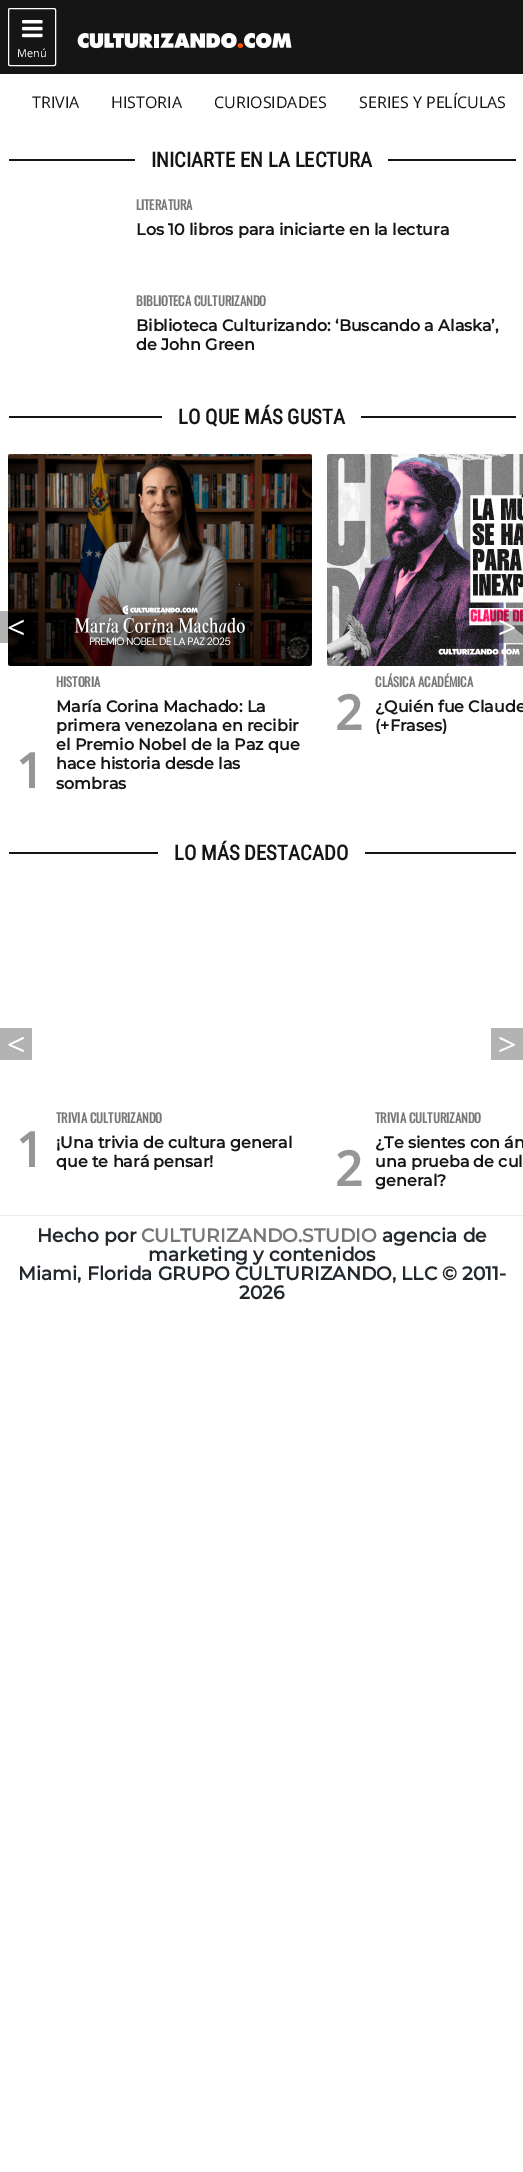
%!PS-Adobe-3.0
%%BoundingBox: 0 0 523 2172
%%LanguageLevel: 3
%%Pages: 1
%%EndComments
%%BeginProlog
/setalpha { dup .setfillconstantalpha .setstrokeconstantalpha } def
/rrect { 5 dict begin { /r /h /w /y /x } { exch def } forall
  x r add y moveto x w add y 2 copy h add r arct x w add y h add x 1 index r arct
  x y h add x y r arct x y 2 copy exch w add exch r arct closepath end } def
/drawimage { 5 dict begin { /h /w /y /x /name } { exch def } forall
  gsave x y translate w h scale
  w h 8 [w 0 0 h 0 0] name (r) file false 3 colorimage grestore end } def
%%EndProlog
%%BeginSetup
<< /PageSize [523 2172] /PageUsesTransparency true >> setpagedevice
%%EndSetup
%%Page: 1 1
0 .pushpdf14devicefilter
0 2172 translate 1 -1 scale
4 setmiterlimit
1 setgray
0 0 523 2172 rectfill
0.082 setgray
0 0 523 74 rectfill
(images/1.raw) 77 33 215 16 drawimage
1 setgray
8.5 8.5 47 57 1.5 rrect stroke
(images/2.raw) 22 20 21 18 drawimage
0.082 setgray
9 159 507 2 rectfill
1 setgray
135 159 253 2 rectfill
0.082 setgray
9 416 507 2 rectfill
1 setgray
162 416 199 2 rectfill
(images/3.raw) 8 454 304 212 drawimage
0.3 setalpha
0 setgray
0 611 32 32 rectfill
1 setalpha
(images/4.raw) 327 454 196 212 drawimage
0.3 setalpha
491 611 32 32 rectfill
1 setalpha
0.082 setgray
9 852 507 2 rectfill
1 setgray
158 852 207 2 rectfill
0.702 setgray
0 1028 32 32 rectfill
491 1028 32 32 rectfill
0.918 setgray
0 1215 523 1 rectfill
/OpenSans-Regular [11 0 0 -11 0 0] selectfont
1 setgray
17 57 moveto (Menú) show
/OpenSans-Regular [16 0 0 -16 0 0] selectfont
0.082 setgray
32 108 moveto (TRIVIA) show
111 108 moveto (HISTORIA) show
214 108 moveto (CURIOSIDADES) show
359 108 moveto (SERIES Y PELÍCULAS) show
/RobotoCondensed-Bold [20.75 0 0 -20.75 0 0] selectfont
151 167 moveto (INICIARTE EN LA LECTURA) show
/Oswald-Bold [12.75 0 0 -12.75 0 0] selectfont
0.467 setgray
136 210 moveto (LITERATURA) show
/Montserrat-Bold [16 0 0 -16 0 0] selectfont
0.082 setgray
136 235 moveto (Los 10 libros para iniciarte en la lectura) show
/Oswald-Bold [12.75 0 0 -12.75 0 0] selectfont
0.467 setgray
136 306 moveto (BIBLIOTECA CULTURIZANDO) show
/Montserrat-Bold [16 0 0 -16 0 0] selectfont
0.082 setgray
136 331 moveto (Biblioteca Culturizando: ‘Buscando a Alaska’,) show
136 350 moveto (de John Green) show
/RobotoCondensed-Bold [20.75 0 0 -20.75 0 0] selectfont
178 424 moveto (LO QUE MÁS GUSTA) show
/OpenSans-Regular [32 0 0 -32 0 0] selectfont
1 setgray
7 639 moveto (<) show
498 639 moveto (>) show
/OpenSans-Bold [48 0 0 -48 0 0] selectfont
0.588 setgray
16 788 moveto (1) show
/Oswald-Bold [12.75 0 0 -12.75 0 0] selectfont
0.467 setgray
56 687 moveto (HISTORIA) show
/Montserrat-Bold [16 0 0 -16 0 0] selectfont
0.082 setgray
56 712 moveto (María Corina Machado: La) show
56 731 moveto (primera venezolana en recibir) show
56 750 moveto (el Premio Nobel de la Paz que) show
56 769 moveto (hace historia desde las) show
56 789 moveto (sombras) show
/OpenSans-Bold [48 0 0 -48 0 0] selectfont
0.588 setgray
335 730 moveto (2) show
/Oswald-Bold [12.75 0 0 -12.75 0 0] selectfont
0.467 setgray
375 687 moveto (CLÁSICA ACADÉMICA) show
/Montserrat-Bold [16 0 0 -16 0 0] selectfont
0.082 setgray
375 712 moveto (¿Quién fue Claude) show
375 731 moveto (\(+Frases\)) show
/RobotoCondensed-Bold [20.75 0 0 -20.75 0 0] selectfont
174 860 moveto (LO MÁS DESTACADO) show
/OpenSans-Regular [32 0 0 -32 0 0] selectfont
1 setgray
7 1056 moveto (<) show
498 1056 moveto (>) show
/OpenSans-Bold [48 0 0 -48 0 0] selectfont
0.588 setgray
16 1167 moveto (1) show
/Oswald-Bold [12.75 0 0 -12.75 0 0] selectfont
0.467 setgray
56 1123 moveto (TRIVIA CULTURIZANDO) show
/Montserrat-Bold [16 0 0 -16 0 0] selectfont
0.082 setgray
56 1148 moveto (¡Una trivia de cultura general) show
56 1167 moveto (que te hará pensar!) show
/OpenSans-Bold [48 0 0 -48 0 0] selectfont
0.588 setgray
335 1186 moveto (2) show
/Oswald-Bold [12.75 0 0 -12.75 0 0] selectfont
0.467 setgray
375 1123 moveto (TRIVIA CULTURIZANDO) show
/Montserrat-Bold [16 0 0 -16 0 0] selectfont
0.082 setgray
375 1148 moveto (¿Te sientes con án) show
375 1167 moveto (una prueba de cul) show
375 1186 moveto (general?) show
/Montserrat-Bold [18.75 0 0 -18.75 0 0] selectfont
0.137 0.157 0.176 setrgbcolor
37 1242 moveto (Hecho por) show
0.467 setgray
141 1242 moveto (CULTURIZANDO.STUDIO) show
0.137 0.157 0.176 setrgbcolor
382 1242 moveto (agencia de) show
148 1261 moveto (marketing y contenidos) show
18 1280 moveto (Miami, Florida GRUPO CULTURIZANDO, LLC © 2011-) show
239 1299 moveto (2026) show
.poppdf14devicefilter showpage
%%EOF
